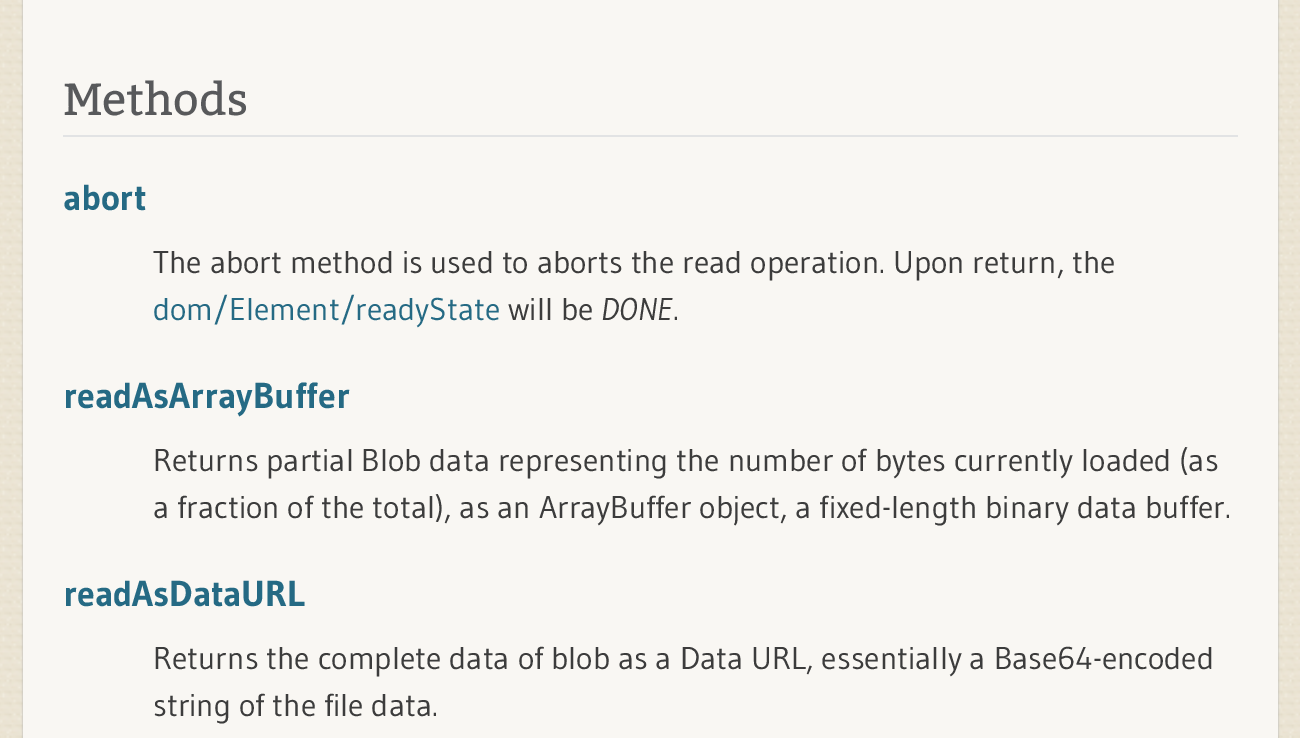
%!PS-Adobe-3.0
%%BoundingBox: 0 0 1300 738
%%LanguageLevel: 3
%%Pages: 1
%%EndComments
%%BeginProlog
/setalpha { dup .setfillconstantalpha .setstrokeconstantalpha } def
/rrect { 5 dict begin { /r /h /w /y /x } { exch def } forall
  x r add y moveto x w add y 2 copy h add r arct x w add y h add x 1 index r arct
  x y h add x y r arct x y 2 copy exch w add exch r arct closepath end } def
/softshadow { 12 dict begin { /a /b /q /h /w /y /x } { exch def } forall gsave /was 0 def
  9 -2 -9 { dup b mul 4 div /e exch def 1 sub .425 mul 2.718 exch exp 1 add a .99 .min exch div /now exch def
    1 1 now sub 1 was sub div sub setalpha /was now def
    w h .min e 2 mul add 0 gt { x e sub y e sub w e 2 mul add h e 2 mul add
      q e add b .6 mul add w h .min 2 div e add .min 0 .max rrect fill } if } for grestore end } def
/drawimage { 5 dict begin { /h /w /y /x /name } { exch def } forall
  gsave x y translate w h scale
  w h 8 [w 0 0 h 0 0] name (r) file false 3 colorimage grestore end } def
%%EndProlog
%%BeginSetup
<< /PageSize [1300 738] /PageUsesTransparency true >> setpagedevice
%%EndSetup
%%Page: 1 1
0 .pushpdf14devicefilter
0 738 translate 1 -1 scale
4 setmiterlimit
1 setgray
0 0 1300 738 rectfill
(images/1.raw) 0 0 1300 738 drawimage
0.655 0.663 0.675 setrgbcolor
23 -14 1255 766 11 1 1 softshadow
0.976 0.969 0.953 setrgbcolor
23 0 1255 738 rectfill
0.886 0.89 0.894 setrgbcolor
63 135 1175 2 rectfill
/Bitter-Regular [45 0 0 -45 0 0] selectfont
0.345 0.349 0.357 setrgbcolor
63 115 moveto (Methods) show
/Gudea-Bold [36 0 0 -36 0 0] selectfont
0.145 0.416 0.518 setrgbcolor
63 210 moveto (abort) show
/Gudea-Regular [31.5 0 0 -31.5 0 0] selectfont
0.235 setgray
153 273 moveto (The abort method is used to aborts the read operation. Upon return, the) show
0.145 0.416 0.518 setrgbcolor
153 320 moveto (dom/Element/readyState) show
0.235 setgray
508 320 moveto (will be) show
/Gudea-Italic [31.5 0 0 -31.5 0 0] selectfont
601 320 moveto (DONE) show
/Gudea-Regular [31.5 0 0 -31.5 0 0] selectfont
673 320 moveto (.) show
/Gudea-Bold [36 0 0 -36 0 0] selectfont
0.145 0.416 0.518 setrgbcolor
63 408 moveto (readAsArrayBuffer) show
/Gudea-Regular [31.5 0 0 -31.5 0 0] selectfont
0.235 setgray
153 471 moveto (Returns partial Blob data representing the number of bytes currently loaded \(as) show
153 518 moveto (a fraction of the total\), as an ArrayBuffer object, a fixed-length binary data buffer.) show
/Gudea-Bold [36 0 0 -36 0 0] selectfont
0.145 0.416 0.518 setrgbcolor
63 606 moveto (readAsDataURL) show
/Gudea-Regular [31.5 0 0 -31.5 0 0] selectfont
0.235 setgray
153 669 moveto (Returns the complete data of blob as a Data URL, essentially a Base64-encoded) show
153 716 moveto (string of the file data.) show
.poppdf14devicefilter showpage
%%EOF
